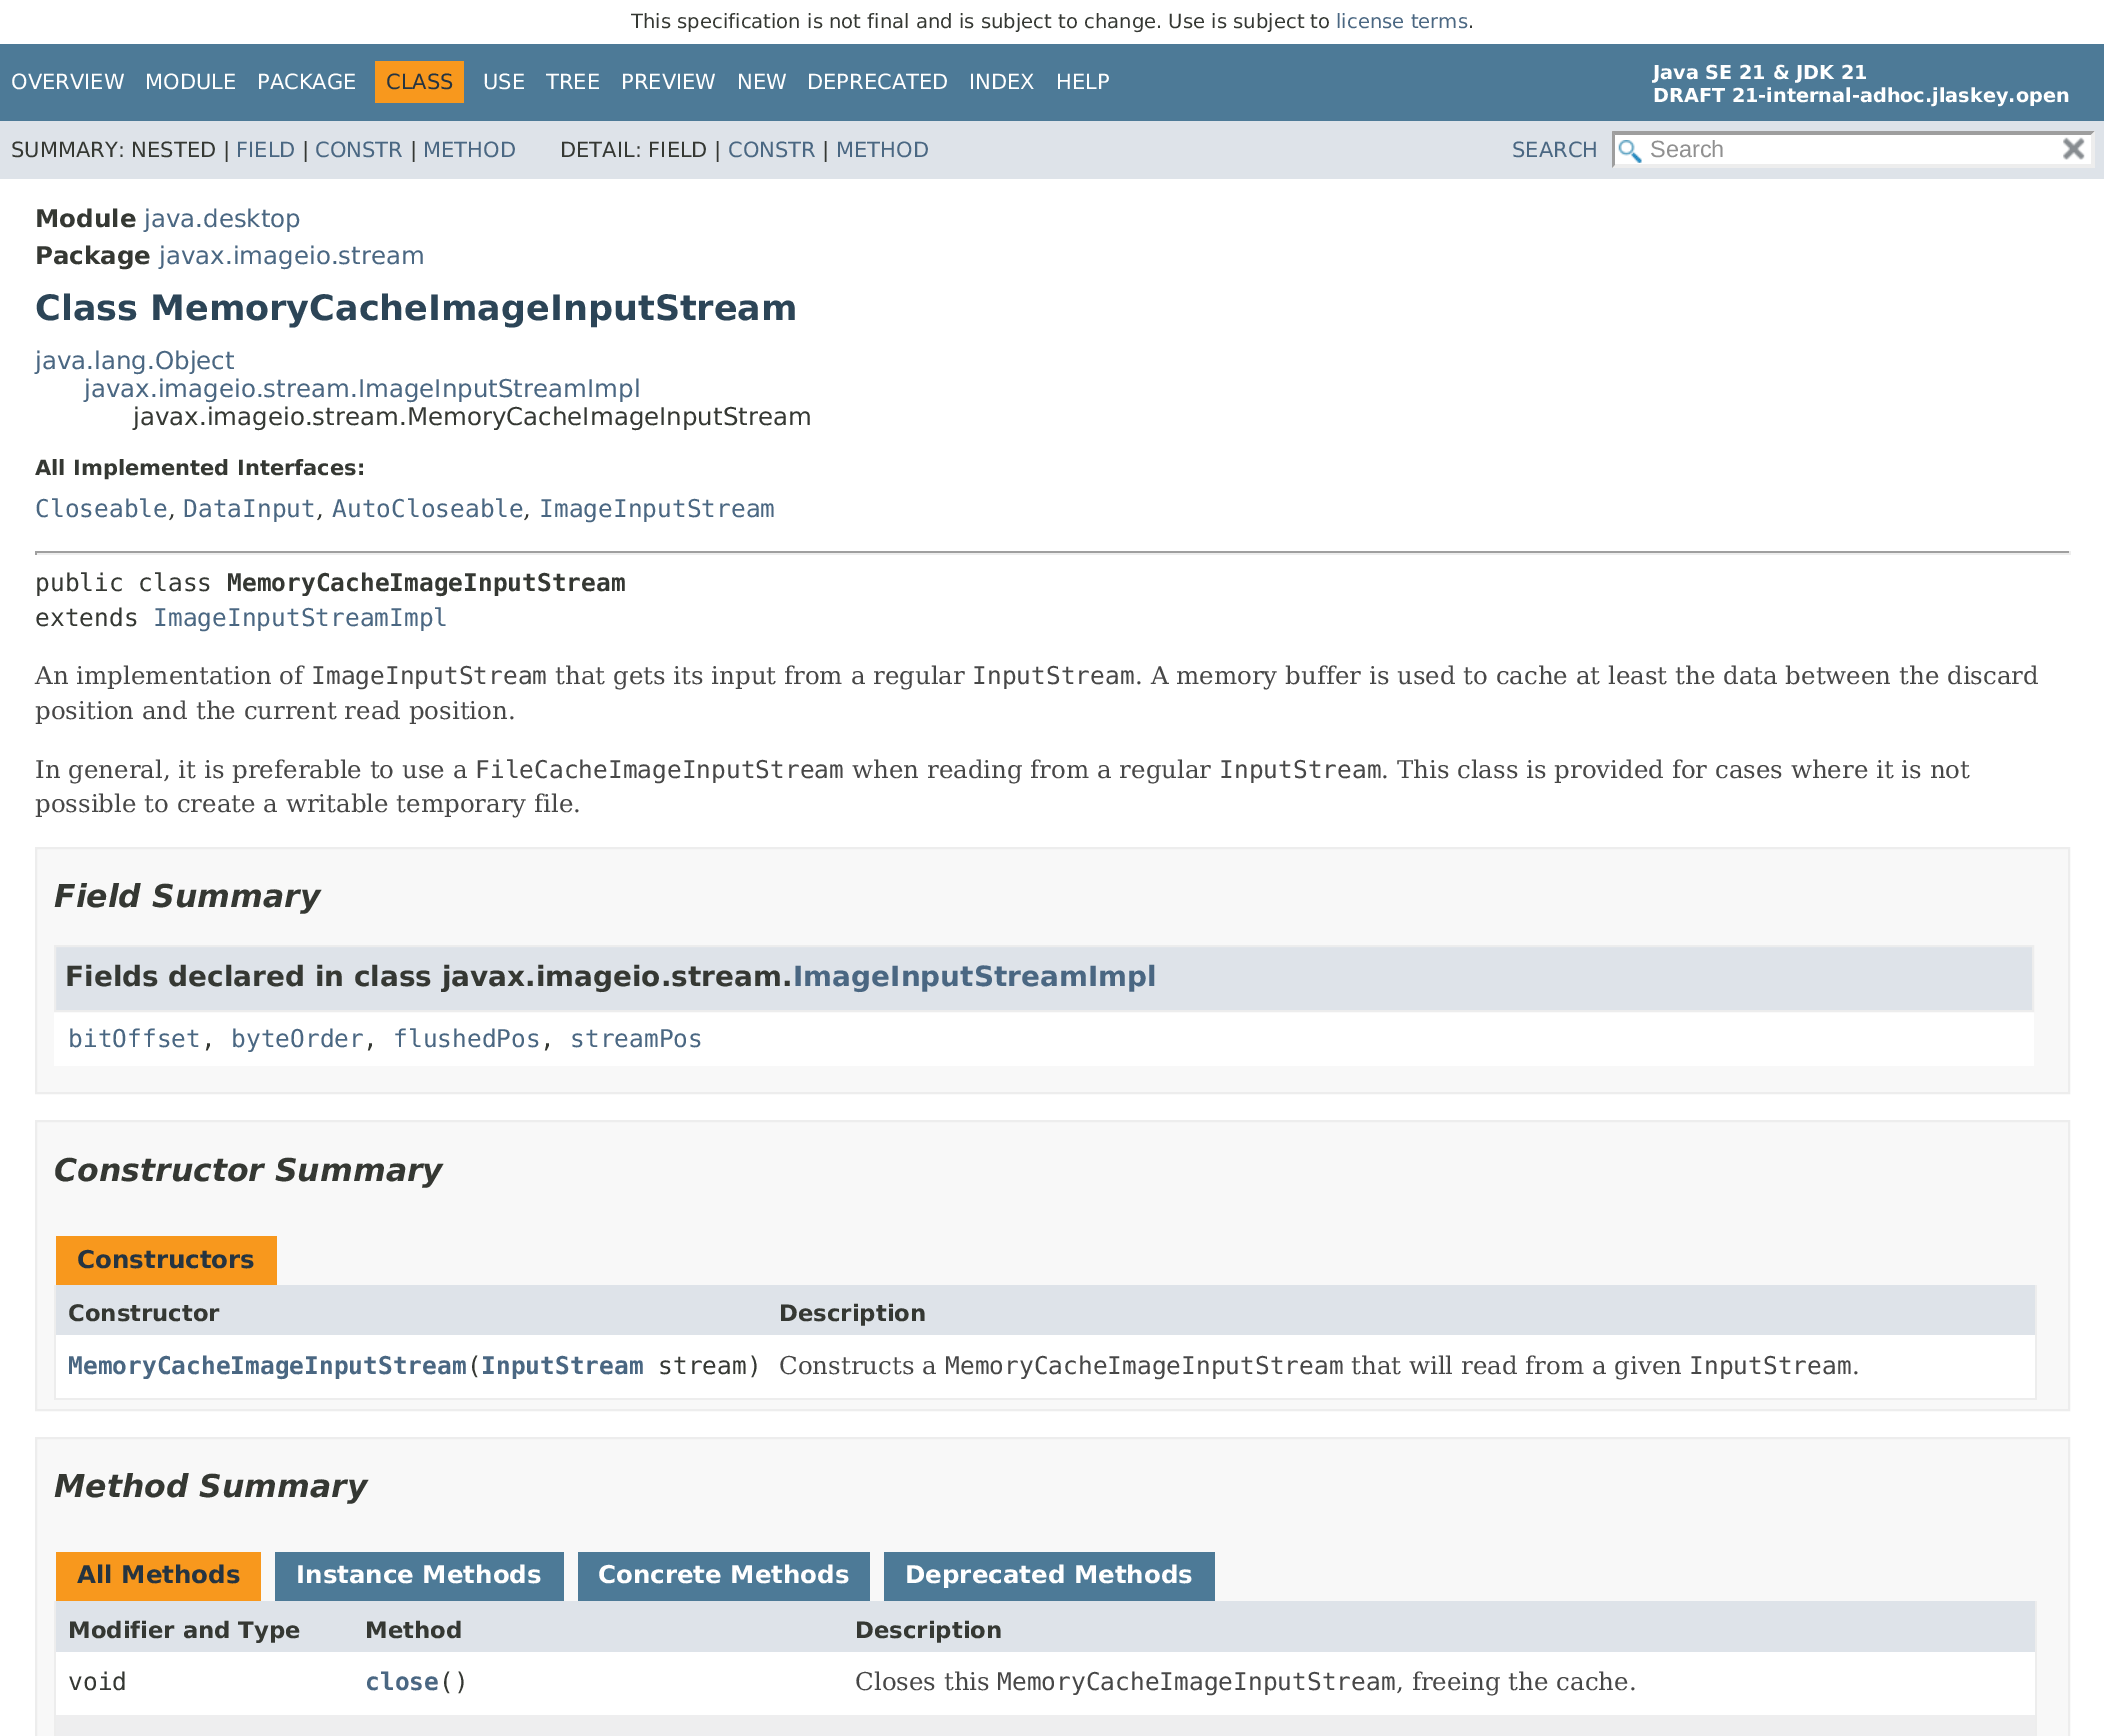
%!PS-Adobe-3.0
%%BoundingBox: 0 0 2104 1736
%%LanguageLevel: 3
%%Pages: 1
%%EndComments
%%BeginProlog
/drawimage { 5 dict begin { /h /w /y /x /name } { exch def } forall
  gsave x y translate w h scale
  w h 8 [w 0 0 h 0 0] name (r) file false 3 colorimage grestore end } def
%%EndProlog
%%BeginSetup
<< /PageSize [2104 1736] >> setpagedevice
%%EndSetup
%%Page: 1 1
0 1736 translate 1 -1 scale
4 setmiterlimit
1 setgray
0 0 2104 1736 rectfill
0.302 0.478 0.592 setrgbcolor
0 44 2104 77 rectfill
0.973 0.596 0.114 setrgbcolor
375 61 89 42 rectfill
0.871 0.89 0.914 setrgbcolor
0 121 2104 58 rectfill
1 setgray
1612 131 483 37 rectfill
(images/1.raw) 1618 140 24 23 drawimage
0.62 setgray
newpath 1612 131 moveto 2095 131 lineto 2091 135 lineto 1615 135 lineto closepath fill
0.929 setgray
newpath 2095 131 moveto 2095 168 lineto 2091 164.5 lineto 2091 135 lineto closepath fill
newpath 2095 168 moveto 1612 168 lineto 1615 164 lineto 2091 164 lineto closepath fill
0.62 setgray
newpath 1612 168 moveto 1612 131 lineto 1615 135 lineto 1615 164.5 lineto closepath fill
(images/2.raw) 2063 137 22 23 drawimage
0.624 setgray
35 551 2035 2 rectfill
0.933 setgray
2069 551 2 4 rectfill
35 553 2035 2 rectfill
0.624 setgray
35 551 2 4 rectfill
0.973 setgray
newpath 36 848 moveto 2069 848 lineto 2069 1093 lineto 36 1093 lineto closepath gsave fill grestore
0.929 setgray
2 setlinewidth
stroke
1 setgray
54 1012 1980 54 rectfill
0.871 0.89 0.914 setrgbcolor
newpath 55 946 moveto 2033 946 lineto 2033 1011 lineto 55 1011 lineto closepath gsave fill grestore
0.929 setgray
stroke
0.973 setgray
newpath 36 1121 moveto 2069 1121 lineto 2069 1410 lineto 36 1410 lineto closepath gsave fill grestore
0.929 setgray
stroke
0.973 0.596 0.114 setrgbcolor
56 1236 221 49 rectfill
0.929 setgray
2035 1285 2 115 rectfill
54 1398 1983 2 rectfill
54 1285 2 115 rectfill
0.871 0.89 0.914 setrgbcolor
56 1285 1979 50 rectfill
1 setgray
56 1335 1979 63 rectfill
0.973 setgray
newpath 36 1438 moveto 2069 1438 lineto 2069 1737 lineto 36 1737 lineto closepath gsave fill grestore
0.929 setgray
stroke
0.973 0.596 0.114 setrgbcolor
56 1552 205 49 rectfill
0.302 0.478 0.592 setrgbcolor
275 1552 289 49 rectfill
578 1552 292 49 rectfill
884 1552 331 49 rectfill
0.929 setgray
2035 1601 2 135 rectfill
54 1601 2 135 rectfill
0.871 0.89 0.914 setrgbcolor
56 1601 1979 51 rectfill
1 setgray
56 1652 1979 63 rectfill
0.933 0.933 0.937 setrgbcolor
56 1715 1979 21 rectfill
/DejaVuSans-Regular [19.6 0 0 -19.6 0 0] selectfont
0.208 0.22 0.2 setrgbcolor
631 28 moveto (This specification is not final and is subject to change. Use is subject to) show
0.29 0.404 0.51 setrgbcolor
1336 28 moveto (license terms) show
0.208 0.22 0.2 setrgbcolor
1468 28 moveto (.) show
/DejaVuSans-Regular [21 0 0 -21 0 0] selectfont
1 setgray
11 89 moveto (OVERVIEW) show
145 89 moveto (MODULE) show
257 89 moveto (PACKAGE) show
0.145 0.204 0.255 setrgbcolor
386 89 moveto (CLASS) show
1 setgray
483 89 moveto (USE) show
546 89 moveto (TREE) show
621 89 moveto (PREVIEW) show
737 89 moveto (NEW) show
807 89 moveto (DEPRECATED) show
969 89 moveto (INDEX) show
1056 89 moveto (HELP) show
/DejaVuSans-Bold [19.25 0 0 -19.25 0 0] selectfont
1653 79 moveto (Java SE 21 & JDK 21) show
1653 102 moveto (DRAFT 21-internal-adhoc.jlaskey.open) show
/DejaVuSans-Regular [21 0 0 -21 0 0] selectfont
0.208 0.22 0.2 setrgbcolor
11 157 moveto (SUMMARY: NESTED |) show
0.29 0.404 0.51 setrgbcolor
236 157 moveto (FIELD) show
0.208 0.22 0.2 setrgbcolor
302 157 moveto (|) show
0.29 0.404 0.51 setrgbcolor
315 157 moveto (CONSTR) show
0.208 0.22 0.2 setrgbcolor
410 157 moveto (|) show
0.29 0.404 0.51 setrgbcolor
423 157 moveto (METHOD) show
0.208 0.22 0.2 setrgbcolor
560 157 moveto (DETAIL: FIELD |) show
0.29 0.404 0.51 setrgbcolor
728 157 moveto (CONSTR) show
0.208 0.22 0.2 setrgbcolor
822 157 moveto (|) show
0.29 0.404 0.51 setrgbcolor
836 157 moveto (METHOD) show
1512 157 moveto (SEARCH) show
/LiberationSans-Regular [23.5 0 0 -23.5 0 0] selectfont
0.565 setgray
1650 157 moveto (Search) show
/DejaVuSans-Bold [24.5 0 0 -24.5 0 0] selectfont
0.208 0.22 0.2 setrgbcolor
35 227 moveto (Module) show
/DejaVuSans-Regular [24.5 0 0 -24.5 0 0] selectfont
0.29 0.404 0.51 setrgbcolor
144 227 moveto (java.desktop) show
/DejaVuSans-Bold [24.5 0 0 -24.5 0 0] selectfont
0.208 0.22 0.2 setrgbcolor
35 264 moveto (Package) show
/DejaVuSans-Regular [24.5 0 0 -24.5 0 0] selectfont
0.29 0.404 0.51 setrgbcolor
159 264 moveto (javax.imageio.stream) show
/DejaVuSans-Bold [35 0 0 -35 0 0] selectfont
0.173 0.271 0.341 setrgbcolor
35 320 moveto (Class MemoryCacheImageInputStream) show
/DejaVuSans-Regular [24.5 0 0 -24.5 0 0] selectfont
0.29 0.404 0.51 setrgbcolor
35 369 moveto (java.lang.Object) show
84 397 moveto (javax.imageio.stream.ImageInputStreamImpl) show
0.208 0.22 0.2 setrgbcolor
133 425 moveto (javax.imageio.stream.MemoryCacheImageInputStream) show
/DejaVuSans-Bold [21 0 0 -21 0 0] selectfont
35 475 moveto (All Implemented Interfaces:) show
/DejaVuSansMono-Regular [24.5 0 0 -24.5 0 0] selectfont
0.29 0.404 0.51 setrgbcolor
35 517 moveto (Closeable) show
/DejaVuSerif-Regular [24.5 0 0 -24.5 0 0] selectfont
0.208 0.22 0.2 setrgbcolor
168 517 moveto (,) show
/DejaVuSansMono-Regular [24.5 0 0 -24.5 0 0] selectfont
0.29 0.404 0.51 setrgbcolor
183 517 moveto (DataInput) show
/DejaVuSerif-Regular [24.5 0 0 -24.5 0 0] selectfont
0.208 0.22 0.2 setrgbcolor
316 517 moveto (,) show
/DejaVuSansMono-Regular [24.5 0 0 -24.5 0 0] selectfont
0.29 0.404 0.51 setrgbcolor
332 517 moveto (AutoCloseable) show
/DejaVuSerif-Regular [24.5 0 0 -24.5 0 0] selectfont
0.208 0.22 0.2 setrgbcolor
523 517 moveto (,) show
/DejaVuSansMono-Regular [24.5 0 0 -24.5 0 0] selectfont
0.29 0.404 0.51 setrgbcolor
539 517 moveto (ImageInputStream) show
0.208 0.22 0.2 setrgbcolor
35 591 moveto (public class) show
/DejaVuSansMono-Bold [24.5 0 0 -24.5 0 0] selectfont
227 591 moveto (MemoryCacheImageInputStream) show
/DejaVuSansMono-Regular [24.5 0 0 -24.5 0 0] selectfont
35 626 moveto (extends) show
0.29 0.404 0.51 setrgbcolor
153 626 moveto (ImageInputStreamImpl) show
/DejaVuSerif-Regular [24.5 0 0 -24.5 0 0] selectfont
0.278 setgray
35 684 moveto (An implementation of) show
/DejaVuSansMono-Regular [24.5 0 0 -24.5 0 0] selectfont
311 684 moveto (ImageInputStream) show
/DejaVuSerif-Regular [24.5 0 0 -24.5 0 0] selectfont
555 684 moveto (that gets its input from a regular) show
/DejaVuSansMono-Regular [24.5 0 0 -24.5 0 0] selectfont
972 684 moveto (InputStream) show
/DejaVuSerif-Regular [24.5 0 0 -24.5 0 0] selectfont
1135 684 moveto (. A memory buffer is used to cache at least the data between the discard) show
35 719 moveto (position and the current read position.) show
35 778 moveto (In general, it is preferable to use a) show
/DejaVuSansMono-Regular [24.5 0 0 -24.5 0 0] selectfont
475 778 moveto (FileCacheImageInputStream) show
/DejaVuSerif-Regular [24.5 0 0 -24.5 0 0] selectfont
852 778 moveto (when reading from a regular) show
/DejaVuSansMono-Regular [24.5 0 0 -24.5 0 0] selectfont
1219 778 moveto (InputStream) show
/DejaVuSerif-Regular [24.5 0 0 -24.5 0 0] selectfont
1381 778 moveto (. This class is provided for cases where it is not) show
35 812 moveto (possible to create a writable temporary file.) show
/DejaVuSans-BoldItalic [31.5 0 0 -31.5 0 0] selectfont
0.208 0.22 0.2 setrgbcolor
54 907 moveto (Field Summary) show
/DejaVuSans-Bold [27.9 0 0 -27.9 0 0] selectfont
65 986 moveto (Fields declared in class javax.imageio.stream.) show
0.29 0.404 0.51 setrgbcolor
793 986 moveto (ImageInputStreamImpl) show
/DejaVuSansMono-Regular [24.5 0 0 -24.5 0 0] selectfont
68 1047 moveto (bitOffset) show
0.208 0.22 0.2 setrgbcolor
201 1047 moveto (,) show
0.29 0.404 0.51 setrgbcolor
231 1047 moveto (byteOrder) show
0.208 0.22 0.2 setrgbcolor
363 1047 moveto (,) show
0.29 0.404 0.51 setrgbcolor
393 1047 moveto (flushedPos) show
0.208 0.22 0.2 setrgbcolor
540 1047 moveto (,) show
0.29 0.404 0.51 setrgbcolor
570 1047 moveto (streamPos) show
/DejaVuSans-BoldItalic [31.5 0 0 -31.5 0 0] selectfont
0.208 0.22 0.2 setrgbcolor
54 1181 moveto (Constructor Summary) show
/DejaVuSans-Bold [24.5 0 0 -24.5 0 0] selectfont
0.145 0.204 0.255 setrgbcolor
77 1268 moveto (Constructors) show
/DejaVuSans-Bold [22.75 0 0 -22.75 0 0] selectfont
0.208 0.22 0.2 setrgbcolor
68 1321 moveto (Constructor) show
779 1321 moveto (Description) show
/DejaVuSansMono-Bold [24.5 0 0 -24.5 0 0] selectfont
0.29 0.404 0.51 setrgbcolor
68 1374 moveto (MemoryCacheImageInputStream InputStream) show
/DejaVuSansMono-Regular [24.5 0 0 -24.5 0 0] selectfont
0.208 0.22 0.2 setrgbcolor
467 1374 moveto (\() show
658 1374 moveto (stream\)) show
/DejaVuSerif-Regular [24.5 0 0 -24.5 0 0] selectfont
0.278 setgray
779 1374 moveto (Constructs a) show
/DejaVuSansMono-Regular [24.5 0 0 -24.5 0 0] selectfont
945 1374 moveto (MemoryCacheImageInputStream) show
/DejaVuSerif-Regular [24.5 0 0 -24.5 0 0] selectfont
1351 1374 moveto (that will read from a given) show
/DejaVuSansMono-Regular [24.5 0 0 -24.5 0 0] selectfont
1689 1374 moveto (InputStream) show
/DejaVuSerif-Regular [24.5 0 0 -24.5 0 0] selectfont
1852 1374 moveto (.) show
/DejaVuSans-BoldItalic [31.5 0 0 -31.5 0 0] selectfont
0.208 0.22 0.2 setrgbcolor
54 1497 moveto (Method Summary) show
/DejaVuSans-Bold [24.5 0 0 -24.5 0 0] selectfont
0.145 0.204 0.255 setrgbcolor
77 1583 moveto (All Methods) show
1 setgray
296 1583 moveto (Instance Methods) show
598 1583 moveto (Concrete Methods) show
905 1583 moveto (Deprecated Methods) show
/DejaVuSans-Bold [22.75 0 0 -22.75 0 0] selectfont
0.208 0.22 0.2 setrgbcolor
68 1638 moveto (Modifier and Type) show
365 1638 moveto (Method) show
855 1638 moveto (Description) show
/DejaVuSansMono-Regular [24.5 0 0 -24.5 0 0] selectfont
68 1690 moveto (void) show
/DejaVuSansMono-Bold [24.5 0 0 -24.5 0 0] selectfont
0.29 0.404 0.51 setrgbcolor
365 1690 moveto (close) show
/DejaVuSansMono-Regular [24.5 0 0 -24.5 0 0] selectfont
0.208 0.22 0.2 setrgbcolor
439 1690 moveto (\(\)) show
/DejaVuSerif-Regular [24.5 0 0 -24.5 0 0] selectfont
0.278 setgray
855 1690 moveto (Closes this) show
/DejaVuSansMono-Regular [24.5 0 0 -24.5 0 0] selectfont
997 1690 moveto (MemoryCacheImageInputStream) show
/DejaVuSerif-Regular [24.5 0 0 -24.5 0 0] selectfont
1396 1690 moveto (, freeing the cache.) show
showpage
%%EOF
